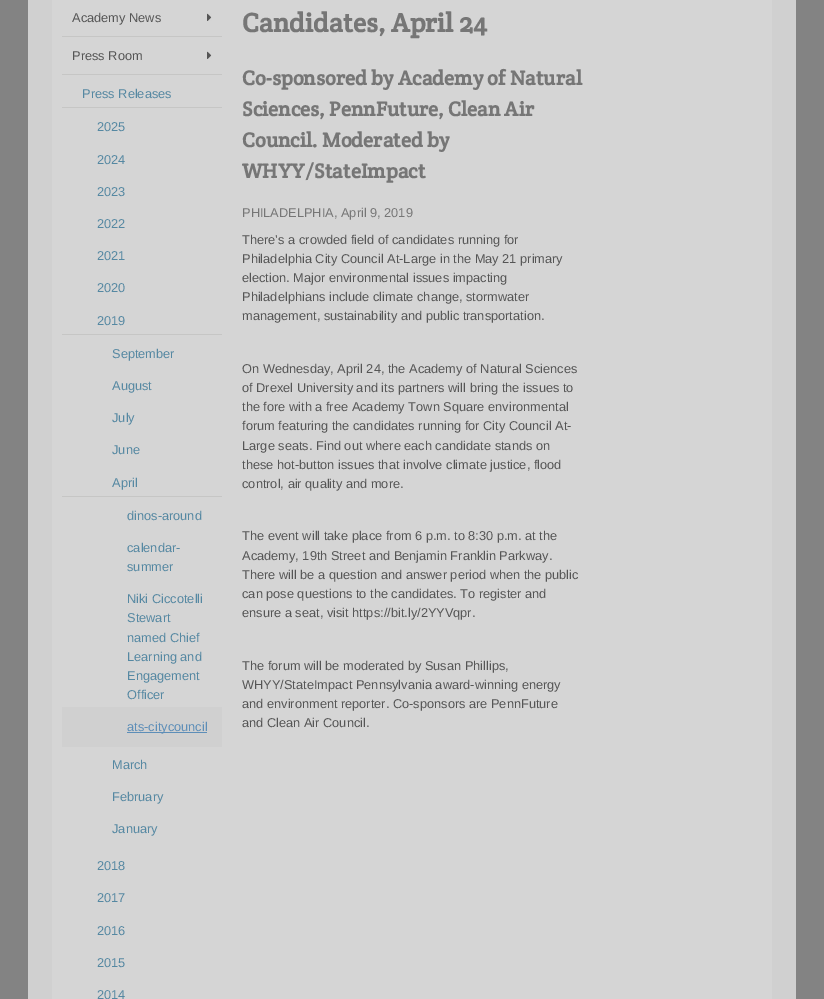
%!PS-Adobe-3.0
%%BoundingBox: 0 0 824 999
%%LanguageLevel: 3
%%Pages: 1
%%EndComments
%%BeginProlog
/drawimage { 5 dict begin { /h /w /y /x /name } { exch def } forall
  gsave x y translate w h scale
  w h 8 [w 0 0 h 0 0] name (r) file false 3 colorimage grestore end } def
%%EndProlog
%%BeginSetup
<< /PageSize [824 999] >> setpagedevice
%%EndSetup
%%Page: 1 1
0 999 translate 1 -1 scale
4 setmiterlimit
0.514 setgray
0 0 824 999 rectfill
0.816 setgray
28 0 768 999 rectfill
0.835 setgray
52 0 720 999 rectfill
0.776 0.776 0.773 setrgbcolor
62 36 160 1 rectfill
(images/1.raw) 207 13 5 8 drawimage
(images/1.raw) 207 51 5 8 drawimage
62 74 160 1 rectfill
62 107 160 1 rectfill
62 334 160 1 rectfill
62 496 160 1 rectfill
0.816 setgray
62 707 160 40 rectfill
0.365 0.557 0.722 setrgbcolor
127 732 80 1 rectfill
/LiberationSans-Regular [12.8 0 0 -12.8 0 0] selectfont
0.333 setgray
72 22 moveto (Academy News) show
72 60 moveto (Press Room) show
0.333 0.533 0.635 setrgbcolor
82 98 moveto (Press Releases) show
97 131 moveto (2025) show
97 164 moveto (2024) show
97 196 moveto (2023) show
97 228 moveto (2022) show
97 260 moveto (2021) show
97 292 moveto (2020) show
97 325 moveto (2019) show
112 358 moveto (September) show
112 390 moveto (August) show
112 422 moveto (July) show
112 454 moveto (June) show
112 487 moveto (April) show
127 520 moveto (dinos-around) show
127 552 moveto (calendar-) show
127 571 moveto (summer) show
127 603 moveto (Niki Ciccotelli) show
127 622 moveto (Stewart) show
127 642 moveto (named Chief) show
127 661 moveto (Learning and) show
127 680 moveto (Engagement) show
127 699 moveto (Officer) show
0.365 0.557 0.722 setrgbcolor
127 731 moveto (ats-citycouncil) show
0.333 0.533 0.635 setrgbcolor
112 769 moveto (March) show
112 801 moveto (February) show
112 833 moveto (January) show
97 870 moveto (2018) show
97 902 moveto (2017) show
97 935 moveto (2016) show
97 967 moveto (2015) show
97 999 moveto (2014) show
/CreteRound-Bold [26.9 0 0 -26.9 0 0] selectfont
0.463 setgray
242 32 moveto (Candidates, April 24) show
/CreteRound-Bold [20.5 0 0 -20.5 0 0] selectfont
242 85 moveto (Co-sponsored by Academy of Natural) show
242 116 moveto (Sciences, PennFuture, Clean Air) show
242 147 moveto (Council. Moderated by) show
242 178 moveto (WHYY/StateImpact) show
/LiberationSans-Regular [12.8 0 0 -12.8 0 0] selectfont
242 217 moveto (PHILADELPHIA, April 9, 2019) show
0.333 setgray
242 244 moveto (There’s a crowded field of candidates running for) show
242 263 moveto (Philadelphia City Council At-Large in the May 21 primary) show
242 282 moveto (election. Major environmental issues impacting) show
242 301 moveto (Philadelphians include climate change, stormwater) show
242 320 moveto (management, sustainability and public transportation.) show
242 373 moveto (On Wednesday, April 24, the Academy of Natural Sciences) show
242 392 moveto (of Drexel University and its partners will bring the issues to) show
242 411 moveto (the fore with a free Academy Town Square environmental) show
242 430 moveto (forum featuring the candidates running for City Council At-) show
242 450 moveto (Large seats. Find out where each candidate stands on) show
242 469 moveto (these hot-button issues that involve climate justice, flood) show
242 488 moveto (control, air quality and more.) show
242 540 moveto (The event will take place from 6 p.m. to 8:30 p.m. at the) show
242 560 moveto (Academy, 19th Street and Benjamin Franklin Parkway.) show
242 579 moveto (There will be a question and answer period when the public) show
242 598 moveto (can pose questions to the candidates. To register and) show
242 617 moveto (ensure a seat, visit https://bit.ly/2YYVqpr.) show
242 670 moveto (The forum will be moderated by Susan Phillips,) show
242 689 moveto (WHYY/StateImpact Pennsylvania award-winning energy) show
242 708 moveto (and environment reporter. Co-sponsors are PennFuture) show
242 727 moveto (and Clean Air Council.) show
showpage
%%EOF
